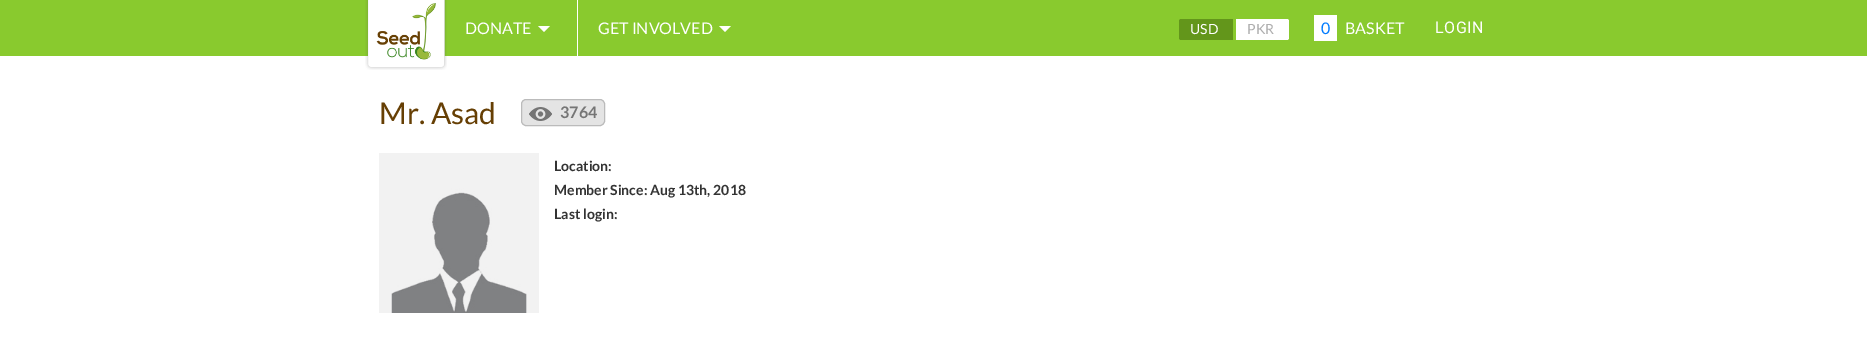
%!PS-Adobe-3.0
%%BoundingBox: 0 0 1867 352
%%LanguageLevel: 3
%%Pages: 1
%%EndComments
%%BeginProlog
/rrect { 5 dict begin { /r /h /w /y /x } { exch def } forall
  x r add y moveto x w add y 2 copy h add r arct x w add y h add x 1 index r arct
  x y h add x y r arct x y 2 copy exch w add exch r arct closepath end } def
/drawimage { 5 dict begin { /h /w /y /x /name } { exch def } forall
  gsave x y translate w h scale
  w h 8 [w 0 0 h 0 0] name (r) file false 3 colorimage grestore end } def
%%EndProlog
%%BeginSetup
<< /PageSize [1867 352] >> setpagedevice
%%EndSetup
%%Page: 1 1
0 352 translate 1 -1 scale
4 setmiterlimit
1 setgray
0 0 1867 352 rectfill
0.537 0.792 0.18 setrgbcolor
0 0 1867 56 rectfill
(images/1.raw) 365 0 82 70 drawimage
1 setgray
577 0 1 56 rectfill
newpath 544 32 moveto 538 26 lineto 550 26 lineto closepath fill
newpath 725 32 moveto 719 26 lineto 731 26 lineto closepath fill
0.388 0.588 0.106 setrgbcolor
newpath 1181 19 moveto 1233 19 lineto 1233 40 lineto 1181 40 lineto 1180 40 1179 39 1179 38 curveto 1179 21 lineto 1179 20 1180 19 1181 19 curveto closepath fill
1 setgray
newpath 1236 19 moveto 1287 19 lineto 1288 19 1289 20 1289 21 curveto 1289 38 lineto 1289 39 1288 40 1287 40 curveto 1236 40 lineto closepath fill
1314 15 23 26 rectfill
0.894 setgray
521.5 99.5 83 26 4.5 rrect gsave fill grestore
0.733 setgray
stroke
(images/2.raw) 529 107 23 14 drawimage
(images/3.raw) 379 153 160 160 drawimage
/Lato-Regular [16 0 0 -16 0 0] selectfont
1 setgray
465 34 moveto (DONATE) show
598 34 moveto (GET INVOLVED) show
/Lato-Regular [14 0 0 -14 0 0] selectfont
1190 34 moveto (USD) show
0.682 setgray
1247 34 moveto (PKR) show
/Lato-Regular [16 0 0 -16 0 0] selectfont
0 0.482 1 setrgbcolor
1321 34 moveto (0) show
1 setgray
1345 34 moveto (BASKET) show
/Roboto-Regular [16 0 0 -16 0 0] selectfont
1435 33 moveto 0.5 0 (LOGIN) ashow
/Lato-Regular [30 0 0 -30 0 0] selectfont
0.4 0.247 0.016 setrgbcolor
379 124 moveto (Mr. Asad) show
/Lato-Bold [16 0 0 -16 0 0] selectfont
0.459 setgray
560 118 moveto (3764) show
/Lato-Bold [14 0 0 -14 0 0] selectfont
0.2 setgray
554 171 moveto (Location:) show
554 195 moveto (Member Since:) show
650 195 moveto (Aug 13th, 2018) show
554 219 moveto (Last login:) show
showpage
%%EOF
